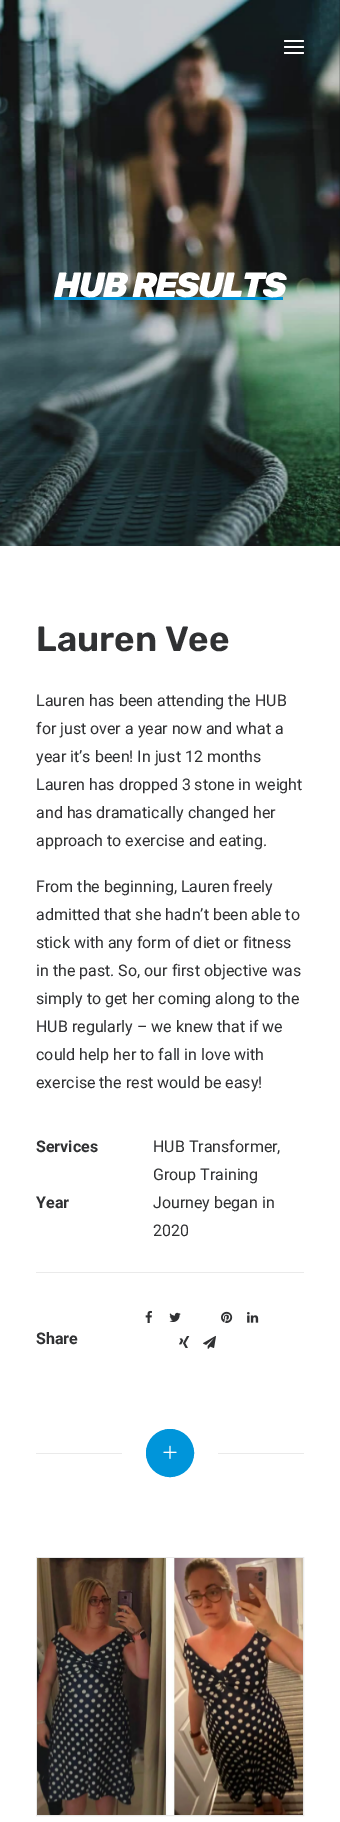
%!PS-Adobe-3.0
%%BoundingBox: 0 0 340 1822
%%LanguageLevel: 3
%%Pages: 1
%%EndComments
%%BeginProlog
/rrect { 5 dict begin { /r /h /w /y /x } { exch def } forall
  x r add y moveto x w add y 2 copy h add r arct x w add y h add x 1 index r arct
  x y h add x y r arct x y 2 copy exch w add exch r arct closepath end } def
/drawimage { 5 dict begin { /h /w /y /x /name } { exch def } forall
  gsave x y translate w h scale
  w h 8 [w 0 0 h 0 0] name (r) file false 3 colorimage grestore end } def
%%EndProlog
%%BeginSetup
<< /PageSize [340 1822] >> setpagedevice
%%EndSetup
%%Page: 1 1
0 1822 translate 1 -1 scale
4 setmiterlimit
1 setgray
0 0 340 1822 rectfill
(images/1.raw) 0 0 340 546 drawimage
284 46 20 2 1 rrect fill
284 40 20 2 1 rrect fill
284 52 20 2 1 rrect fill
0 0.584 0.855 setrgbcolor
54 297 229 3 rectfill
0.918 setgray
36 1272 268 1 rectfill
(images/2.raw) 145 1310 7 13 drawimage
(images/3.raw) 169 1312 12 10 drawimage
(images/4.raw) 221 1311 12 12 drawimage
(images/5.raw) 247 1312 12 11 drawimage
(images/6.raw) 179 1336 11 12 drawimage
(images/7.raw) 203 1335 13 14 drawimage
36 1453 86 1 rectfill
0 0.584 0.855 setrgbcolor
newpath 170 1453 23.5 0 360 arc closepath gsave fill grestore
stroke
(images/8.raw) 163 1445 14 14 drawimage
0.918 setgray
218 1453 86 1 rectfill
36.5 1557.5 267 258 rectstroke
(images/9.raw) 37 1558 266 257 drawimage
/Rubik-ExtraBoldItalic [35 0 0 -35 0 0] selectfont
1 setgray
54 297 moveto -1.75 0 (HUB) ashow
132 297 moveto -1.75 0 (RESULTS) ashow
/Rubik-SemiBold [35 0 0 -35 0 0] selectfont
0.188 0.192 0.2 setrgbcolor
36 651 moveto (Lauren Vee) show
/Roboto-Regular [16 0 0 -16 0 0] selectfont
36 706 moveto (Lauren has been attending the HUB) show
36 734 moveto (for just over a year now and what a) show
36 762 moveto (year it’s been! In just 12 months) show
36 790 moveto (Lauren has dropped 3 stone in weight) show
36 818 moveto (and has dramatically changed her) show
36 846 moveto (approach to exercise and eating.) show
36 892 moveto (From the beginning, Lauren freely) show
36 920 moveto (admitted that she hadn’t been able to) show
36 948 moveto (stick with any form of diet or fitness) show
36 976 moveto (in the past. So, our first objective was) show
36 1004 moveto (simply to get her coming along to the) show
36 1032 moveto (HUB regularly – we knew that if we) show
36 1060 moveto (could help her to fall in love with) show
36 1088 moveto (exercise the rest would be easy!) show
/Roboto-Bold [16 0 0 -16 0 0] selectfont
36 1152 moveto (Services) show
/Roboto-Regular [16 0 0 -16 0 0] selectfont
153 1152 moveto (HUB Transformer,) show
153 1180 moveto (Group Training) show
/Roboto-Bold [16 0 0 -16 0 0] selectfont
36 1208 moveto (Year) show
/Roboto-Regular [16 0 0 -16 0 0] selectfont
153 1208 moveto (Journey began in) show
153 1236 moveto (2020) show
/Roboto-Bold [16 0 0 -16 0 0] selectfont
36 1344 moveto (Share) show
showpage
%%EOF
